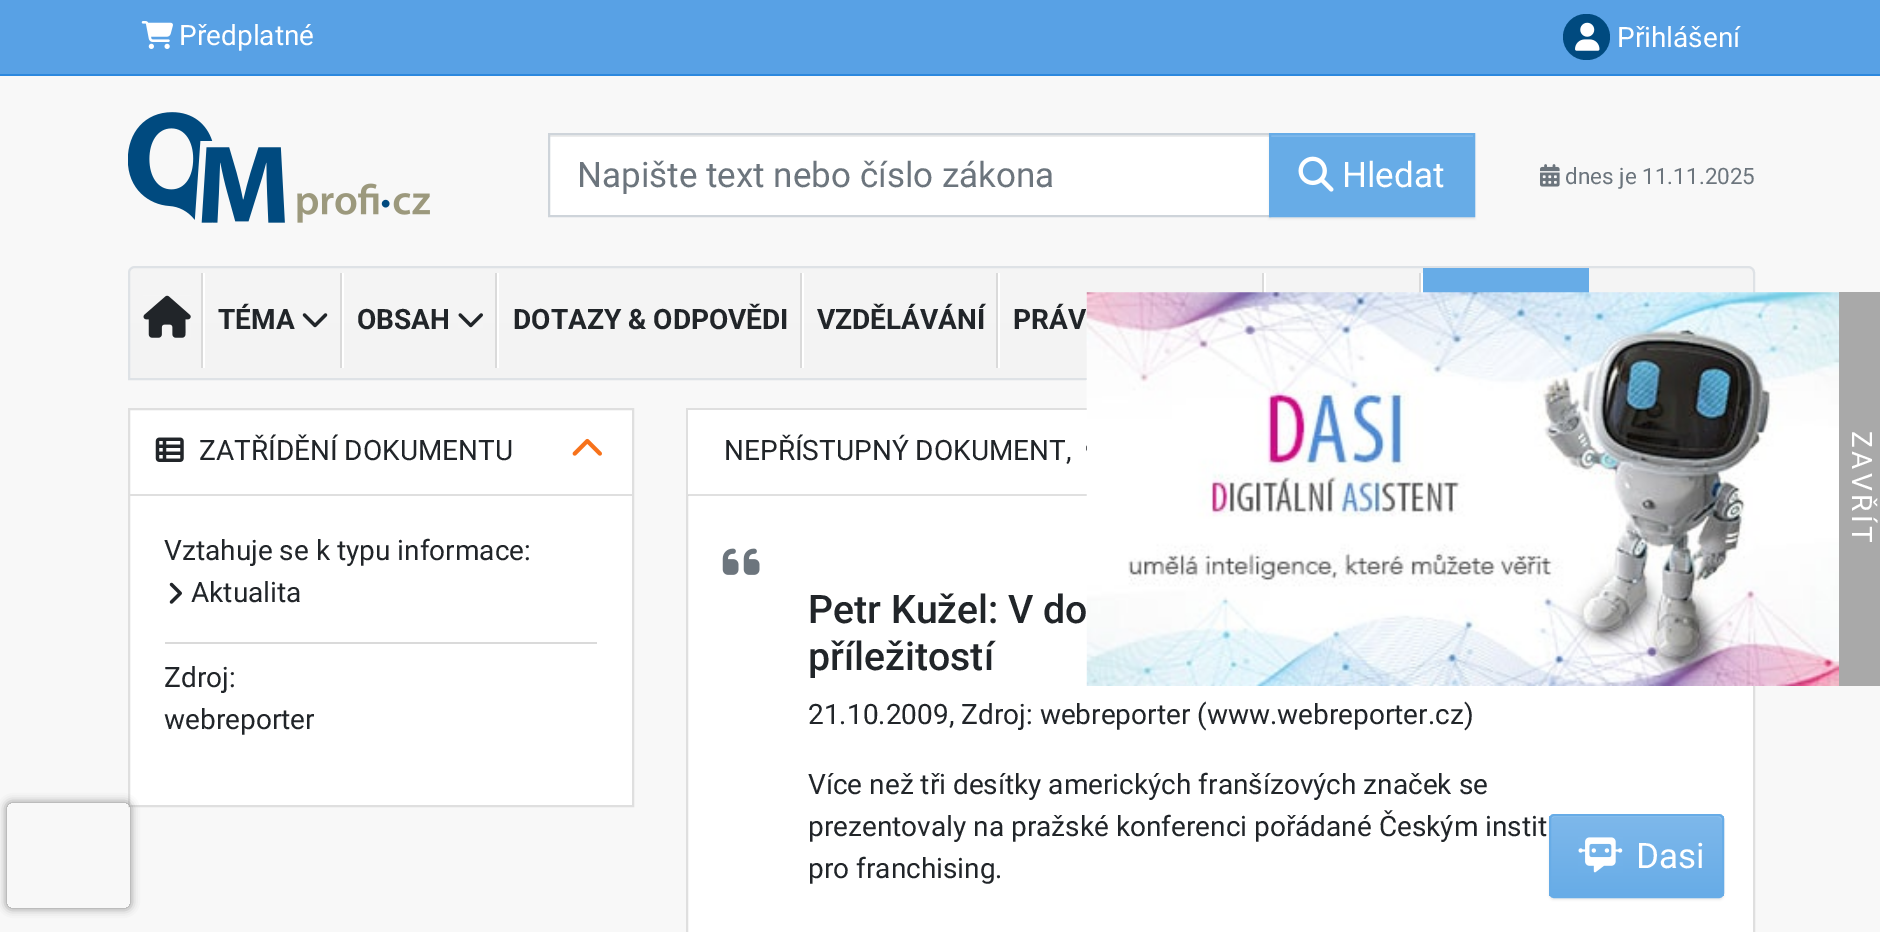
%!PS-Adobe-3.0
%%BoundingBox: 0 0 1880 932
%%LanguageLevel: 3
%%Pages: 1
%%EndComments
%%BeginProlog
/setalpha { dup .setfillconstantalpha .setstrokeconstantalpha } def
/rrect { 5 dict begin { /r /h /w /y /x } { exch def } forall
  x r add y moveto x w add y 2 copy h add r arct x w add y h add x 1 index r arct
  x y h add x y r arct x y 2 copy exch w add exch r arct closepath end } def
/softshadow { 12 dict begin { /a /b /q /h /w /y /x } { exch def } forall gsave /was 0 def
  9 -2 -9 { dup b mul 4 div /e exch def 1 sub .425 mul 2.718 exch exp 1 add a .99 .min exch div /now exch def
    1 1 now sub 1 was sub div sub setalpha /was now def
    w h .min e 2 mul add 0 gt { x e sub y e sub w e 2 mul add h e 2 mul add
      q e add b .6 mul add w h .min 2 div e add .min 0 .max rrect fill } if } for grestore end } def
/drawimage { 5 dict begin { /h /w /y /x /name } { exch def } forall
  gsave x y translate w h scale
  w h 8 [w 0 0 h 0 0] name (r) file false 3 colorimage grestore end } def
%%EndProlog
%%BeginSetup
<< /PageSize [1880 932] /PageUsesTransparency true >> setpagedevice
%%EndSetup
%%Page: 1 1
0 .pushpdf14devicefilter
0 932 translate 1 -1 scale
4 setmiterlimit
0.973 setgray
0 0 1880 932 rectfill
1 setgray
newpath 129 409 moveto 633 409 lineto 633 806 lineto 129 806 lineto closepath gsave fill grestore
0.875 setgray
2 setlinewidth
stroke
gsave
newpath 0 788 moveto 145 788 lineto 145 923 lineto 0 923 lineto closepath 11 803 moveto 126 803 lineto 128 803 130 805 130 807 curveto 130 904 lineto 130 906 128 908 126 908 curveto 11 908 lineto 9 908 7 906 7 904 curveto 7 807 lineto 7 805 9 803 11 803 curveto closepath eoclip newpath
0.502 setgray
7 803 123 105 4 4.5 1 softshadow
grestore
0.345 0.631 0.898 setrgbcolor
0 0 1880 74 rectfill
0.173 0.533 0.871 setrgbcolor
0 74 1880 2 rectfill
(images/1.raw) 141 21 32 28 drawimage
0 0.29 0.498 setrgbcolor
1563 14 47 46 23 rrect fill
(images/2.raw) 1575 22 25 29 drawimage
(images/3.raw) 128 112 302 111 drawimage
1 setgray
550 137 719 78 rectfill
0.925 setgray
550 135 719 2 rectfill
0.808 0.831 0.855 setrgbcolor
549 134 721 82 rectstroke
0 setgray
1269 135 206 84 0 1 0.07 softshadow
0.404 0.675 0.906 setrgbcolor
1271 137 202 78 rectfill
0.494 0.722 0.922 setrgbcolor
1271 135 203 2 rectfill
0.404 0.675 0.906 setrgbcolor
1270 134 204 82 rectstroke
(images/4.raw) 1298 156 36 36 drawimage
(images/5.raw) 1540 164 20 23 drawimage
gsave
newpath 135 266 moveto 1748 266 lineto 1752 266 1755 269 1755 273 curveto 1755 380 lineto 128 380 lineto 128 273 lineto 128 269 131 266 135 266 curveto closepath clip newpath
gsave newpath 128 268 moveto 1755 268 lineto 1755 378 lineto 128 378 lineto closepath clip newpath
<< /ShadingType 2 /ColorSpace /DeviceRGB /Coords [942 268 942 378] /Extend [true true] /Function << /FunctionType 2 /Domain [0 1] /C0 [0.961 0.961 0.961] /C1 [0.953 0.953 0.953] /N 1 >> >> shfill grestore
grestore
0.871 0.886 0.902 setrgbcolor
newpath 135 267 moveto 1748 267 lineto 1751.5 267 1754 269.5 1754 273 curveto 1754 379 lineto 129 379 lineto 129 273 lineto 129 269.5 131.5 267 135 267 curveto closepath stroke
(images/6.raw) 143 295 48 43 drawimage
1 setgray
203 273 2 95 rectfill
0.855 setgray
201 273 2 95 rectfill
1 setgray
1421 273 2 20 rectfill
0.855 setgray
1419 273 2 20 rectfill
0.404 0.675 0.906 setrgbcolor
1423 268 166 25 rectfill
(images/7.raw) 302 313 26 15 drawimage
1 setgray
342 273 2 95 rectfill
0.855 setgray
340 273 2 95 rectfill
(images/8.raw) 458 313 25 15 drawimage
1 setgray
497 273 2 95 rectfill
0.855 setgray
495 273 2 95 rectfill
1 setgray
802 273 2 95 rectfill
0.855 setgray
800 273 2 95 rectfill
1 setgray
998 273 2 95 rectfill
0.855 setgray
996 273 2 95 rectfill
1 setgray
1264 273 2 20 rectfill
0.855 setgray
1262 273 2 20 rectfill
0.875 setgray
130 494 502 2 rectfill
(images/9.raw) 155 437 29 25 drawimage
(images/10.raw) 572 438 30 18 drawimage
0.855 setgray
165 642 432 2 rectfill
(images/11.raw) 169 582 13 22 drawimage
1 setgray
688 495 1065 437 rectfill
0.875 setgray
687 409 1067 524 rectstroke
1 setgray
688 410 399 85 rectfill
0.12 setalpha
0 setgray
688 494 399 2 rectfill
1 setalpha
(images/12.raw) 722 548 38 27 drawimage
1549 816 175 84 5 1 0.07 softshadow
gsave
1549 814 175 84 5 rrect clip newpath
gsave newpath 1549 816 moveto 1724 816 lineto 1724 896 lineto 1549 896 lineto closepath clip newpath
<< /ShadingType 2 /ColorSpace /DeviceRGB /Coords [1636 816 1636 896] /Extend [true true] /Function << /FunctionType 2 /Domain [0 1] /C0 [0.494 0.722 0.922] /C1 [0.404 0.675 0.906] /N 1 >> >> shfill grestore
grestore
0.569 0.765 0.933 setrgbcolor
newpath 1554 817 moveto 1718 817 lineto 1720 817 1722 819 1722 821 curveto 1722 820 lineto 1722 818 1720 816 1718 816 curveto 1555 816 lineto 1554 816 1552 817 1552 818 curveto closepath fill
0.404 0.675 0.906 setrgbcolor
1550 815 173 82 4 rrect stroke
(images/13.raw) 1578 837 45 36 drawimage
0.663 setgray
1839 292 41 394 rectfill
/Roboto-Regular [28 0 0 -28 0 0] selectfont
1 setgray
179 45 moveto (Předplatné) show
1617 47 moveto (Přihlášení) show
/Roboto-Regular [35 0 0 -35 0 0] selectfont
0.424 0.459 0.49 setrgbcolor
577 187 moveto (Napište text nebo číslo zákona) show
1 setgray
1342 187 moveto (Hledat) show
/Roboto-Regular [22.5 0 0 -22.5 0 0] selectfont
0.424 0.459 0.49 setrgbcolor
1565 184 moveto (dnes je 11.11.2025) show
/Roboto-Bold [28 0 0 -28 0 0] selectfont
0.129 0.145 0.161 setrgbcolor
218 329 moveto (TÉMA) show
357 329 moveto (OBSAH) show
513 329 moveto (DOTAZY & ODPOVĚDI) show
817 329 moveto (VZDĚLÁVÁNÍ) show
1013 329 moveto (PRÁV) show
/Roboto-Regular [28 0 0 -28 0 0] selectfont
199 460 moveto (ZATŘÍDĚNÍ DOKUMENTU) show
164 560 moveto (Vztahuje se k typu informace:) show
191 602 moveto (Aktualita) show
164 687 moveto (Zdroj:) show
164 729 moveto (webreporter) show
724 460 moveto (NEPŘÍSTUPNÝ DOKUMENT,) show
/Roboto-Medium [39.25 0 0 -39.25 0 0] selectfont
808 623 moveto (Petr Kužel: V do) show
808 670 moveto (příležitostí) show
/Roboto-Regular [28 0 0 -28 0 0] selectfont
808 724 moveto (21.10.2009, Zdroj: webreporter \(www.webreporter.cz\)) show
808 794 moveto (Více než tři desítky amerických franšízových značek se) show
808 836 moveto (prezentovaly na pražské konferenci pořádané Českým instit) show
808 878 moveto (pro franchising.) show
/Roboto-Regular [35 0 0 -35 0 0] selectfont
1 setgray
1636 868 moveto (Dasi) show
(images/14.raw) 1086 292 753 394 drawimage
/Roboto-Regular [28 0 0 -28 0 0] selectfont
gsave 1852 431 translate 90 rotate 0 0 moveto 3.5 0 (ZAVŘÍT) ashow grestore
.poppdf14devicefilter showpage
%%EOF
